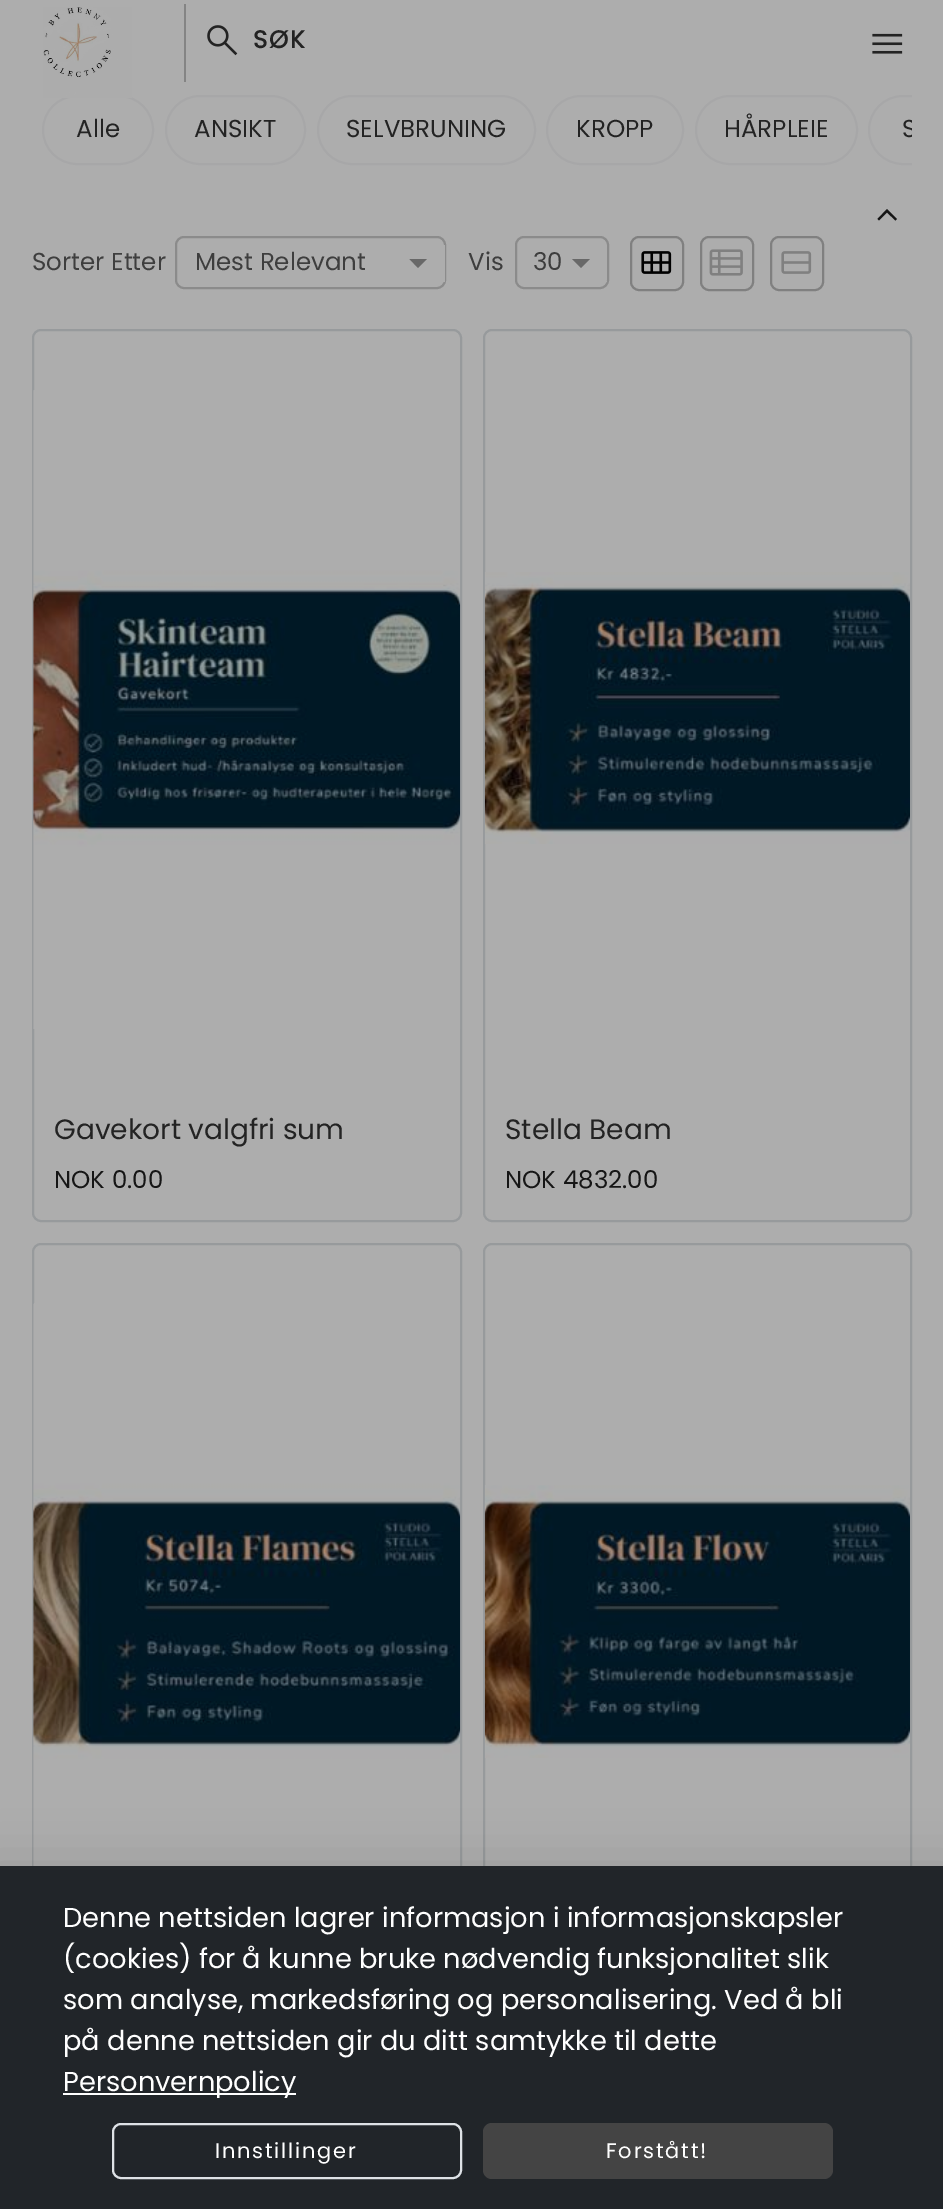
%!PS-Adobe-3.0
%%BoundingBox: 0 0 943 2209
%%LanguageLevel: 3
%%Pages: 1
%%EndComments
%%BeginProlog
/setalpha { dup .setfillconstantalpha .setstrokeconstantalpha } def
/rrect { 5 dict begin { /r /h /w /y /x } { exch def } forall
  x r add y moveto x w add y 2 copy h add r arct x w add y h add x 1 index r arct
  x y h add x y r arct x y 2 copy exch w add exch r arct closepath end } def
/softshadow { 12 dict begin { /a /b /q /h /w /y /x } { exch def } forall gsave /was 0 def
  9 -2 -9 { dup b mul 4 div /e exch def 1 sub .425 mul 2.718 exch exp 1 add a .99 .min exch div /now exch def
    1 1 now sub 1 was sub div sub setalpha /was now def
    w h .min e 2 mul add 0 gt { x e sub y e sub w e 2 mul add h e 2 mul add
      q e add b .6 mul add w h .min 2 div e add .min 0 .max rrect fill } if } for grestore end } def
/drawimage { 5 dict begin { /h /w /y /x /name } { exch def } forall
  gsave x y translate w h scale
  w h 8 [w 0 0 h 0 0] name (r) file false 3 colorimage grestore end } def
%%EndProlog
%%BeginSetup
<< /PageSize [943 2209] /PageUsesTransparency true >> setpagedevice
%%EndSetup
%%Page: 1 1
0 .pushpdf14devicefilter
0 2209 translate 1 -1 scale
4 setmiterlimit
0.678 setgray
0 0 943 2209 rectfill
0.655 0.655 0.659 setrgbcolor
2 setlinewidth
43 96 110 68 34 rrect stroke
(images/1.raw) 43 7 89 91 drawimage
0.518 setgray
184 4 2 78 rectfill
(images/2.raw) 207 25 31 31 drawimage
(images/3.raw) 872 33 31 21 drawimage
0.655 0.655 0.659 setrgbcolor
166 96 139 68 34 rrect stroke
318 96 217 68 34 rrect stroke
547 96 136 68 34 rrect stroke
696 96 161 68 34 rrect stroke
gsave
32 84 880 91 rectclip
869 96 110 68 34 rrect stroke
grestore
0.086 setgray
newpath 887 212.5 moveto 879 220.5 lineto 877.5 219 lineto 887 209 lineto 897 219 lineto 895.5 220.5 lineto closepath fill
0.545 setgray
176 237 269 51 8 rrect stroke
0.678 setgray
443 245 2 37 rectfill
0.408 setgray
newpath 409.5 259 moveto 427 259 lineto 418 268 lineto closepath fill
0.545 setgray
516 237 92 51 8 rrect stroke
0.678 setgray
606 281 1 1 rectfill
0.408 setgray
newpath 572 259 moveto 590 259 lineto 581 268 lineto closepath fill
0.502 setgray
631 237 52 53 8 rrect stroke
(images/4.raw) 641 251 31 23 drawimage
701 237 52 53 8 rrect stroke
(images/5.raw) 709 249 34 27 drawimage
771 237 52 53 8 rrect stroke
(images/6.raw) 781 251 31 23 drawimage
0.592 0.604 0.612 setrgbcolor
33 330 428 891 8 rrect stroke
(images/7.raw) 33 390 428 639 drawimage
484 330 427 891 8 rrect stroke
(images/8.raw) 484 572 426 272 drawimage
33 1244 428 890 8 rrect stroke
(images/9.raw) 33 1303 428 563 drawimage
484 1244 427 890 8 rrect stroke
(images/10.raw) 484 1485 426 273 drawimage
0 setgray
-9 1867 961 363 0 26 0.12 softshadow
0.129 0.145 0.161 setrgbcolor
0 1866 943 343 rectfill
1 setgray
63 2093 233 2 rectfill
0.871 0.886 0.902 setrgbcolor
113 2124 348 54 8 rrect stroke
0.267 setgray
483 2123 350 56 9 rrect fill
/Poppins-Bold [24.5 0 0 -24.5 0 0] selectfont
0.137 setgray
253 48 moveto 1.75 0 (SØK) ashow
/Poppins-Regular [24.5 0 0 -24.5 0 0] selectfont
76 137 moveto (Alle) show
194 137 moveto (ANSIKT) show
346 137 moveto (SELVBRUNING) show
576 137 moveto (KROPP) show
724 137 moveto (HÅRPLEIE) show
gsave
32 84 880 91 rectclip
902 137 moveto (S) show
grestore
0.243 setgray
32 270 moveto (Sorter Etter) show
195 270 moveto (Mest Relevant) show
468 270 moveto (Vis) show
533 270 moveto (30) show
/Poppins-Regular [28 0 0 -28 0 0] selectfont
0.137 setgray
54 1139 moveto (Gavekort valgfri sum) show
/Poppins-Regular [24.5 0 0 -24.5 0 0] selectfont
0.086 setgray
54 1188 moveto (NOK 0.00) show
/Poppins-Regular [28 0 0 -28 0 0] selectfont
0.137 setgray
505 1139 moveto (Stella Beam) show
/Poppins-Regular [24.5 0 0 -24.5 0 0] selectfont
0.086 setgray
505 1188 moveto (NOK 4832.00) show
/Poppins-Regular [27.3 0 0 -27.3 0 0] selectfont
1 setgray
63 1927 moveto (Denne nettsiden lagrer informasjon i informasjonskapsler) show
63 1968 moveto (\(cookies\) for å kunne bruke nødvendig funksjonalitet slik) show
63 2009 moveto (som analyse, markedsføring og personalisering. Ved å bli) show
63 2050 moveto (på denne nettsiden gir du ditt samtykke til dette) show
63 2091 moveto (Personvernpolicy) show
/Poppins-Regular [21 0 0 -21 0 0] selectfont
215 2158 moveto 1.75 0 (Innstillinger) ashow
606 2158 moveto 1.75 0 (Forstått!) ashow
.poppdf14devicefilter showpage
%%EOF
